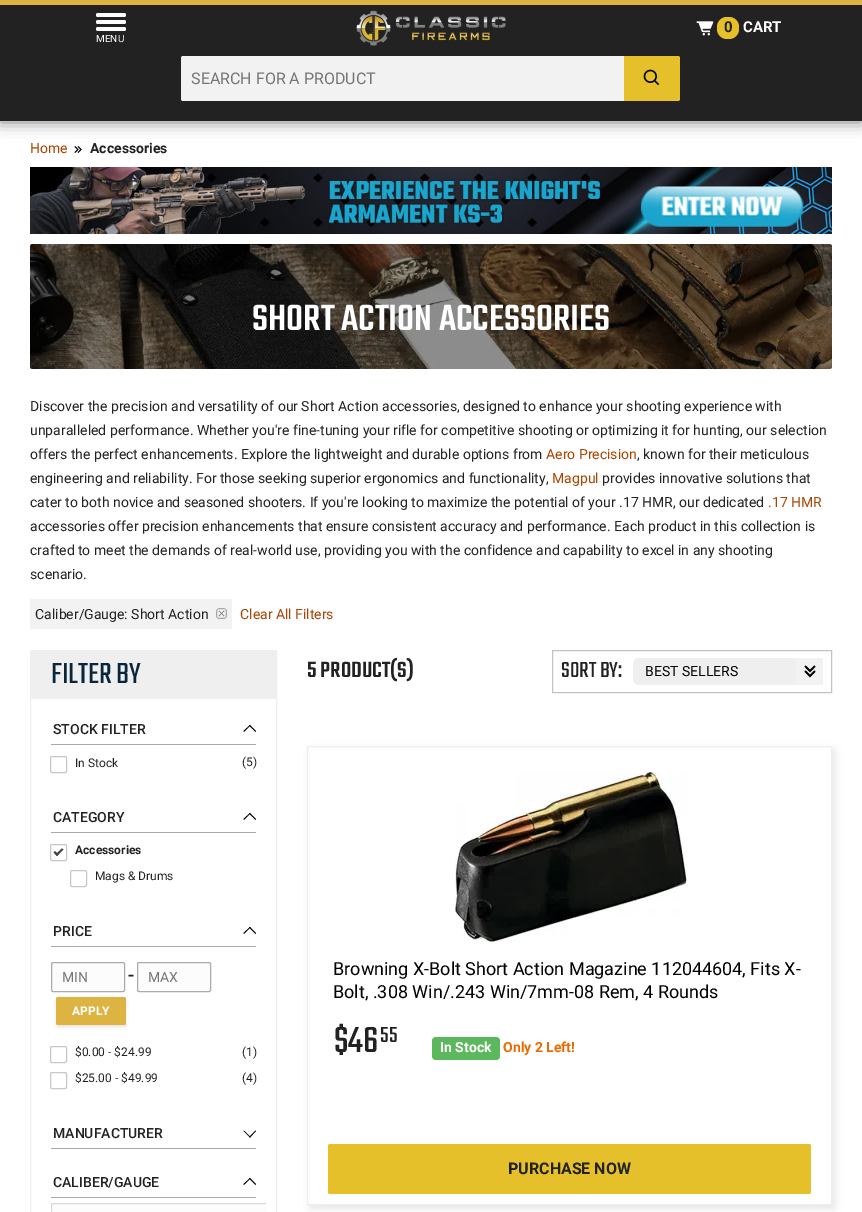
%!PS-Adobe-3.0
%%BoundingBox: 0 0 862 1212
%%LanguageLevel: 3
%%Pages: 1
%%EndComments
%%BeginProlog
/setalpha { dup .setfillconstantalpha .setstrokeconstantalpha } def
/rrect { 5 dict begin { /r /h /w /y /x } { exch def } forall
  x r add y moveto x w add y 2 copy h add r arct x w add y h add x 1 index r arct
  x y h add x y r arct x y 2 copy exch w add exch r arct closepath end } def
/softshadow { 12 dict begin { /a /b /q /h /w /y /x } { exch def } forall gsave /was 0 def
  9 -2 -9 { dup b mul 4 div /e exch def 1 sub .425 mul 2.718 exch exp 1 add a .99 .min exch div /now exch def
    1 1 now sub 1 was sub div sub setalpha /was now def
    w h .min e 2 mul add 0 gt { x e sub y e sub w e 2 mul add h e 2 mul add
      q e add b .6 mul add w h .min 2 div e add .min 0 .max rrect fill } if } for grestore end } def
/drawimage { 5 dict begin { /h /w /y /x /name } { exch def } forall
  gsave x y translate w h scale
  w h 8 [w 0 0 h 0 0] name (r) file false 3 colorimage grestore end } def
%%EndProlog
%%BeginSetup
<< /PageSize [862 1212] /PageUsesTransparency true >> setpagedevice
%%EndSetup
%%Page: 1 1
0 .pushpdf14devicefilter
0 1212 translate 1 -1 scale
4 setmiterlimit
1 setgray
0 0 862 1212 rectfill
0 setgray
0 1 862 121 0 7.5 0.5 softshadow
0.133 setgray
0 5 862 116 rectfill
0.867 0.706 0.255 setrgbcolor
0 0 862 5 rectfill
(images/1.raw) 356 10 150 36 drawimage
(images/2.raw) 696 21 18 15 drawimage
0.902 0.753 0.165 setrgbcolor
717 17 22 22 10 rrect fill
1 setgray
96 13 30 4 2 rrect fill
96 20 30 4 2 rrect fill
96 27 30 4 2 rrect fill
0.949 setgray
newpath 183 56 moveto 626 56 lineto 626 101 lineto 183 101 lineto 182 101 181 100 181 99 curveto 181 58 lineto 181 57 182 56 183 56 curveto closepath fill
0.902 0.753 0.165 setrgbcolor
newpath 624 56 moveto 678 56 lineto 679 56 680 57 680 58 curveto 680 99 lineto 680 100 679 101 678 101 curveto 624 101 lineto closepath fill
(images/3.raw) 643 69 17 17 drawimage
(images/4.raw) 74 146 8 7 drawimage
(images/5.raw) 30 167 802 67 drawimage
(images/6.raw) 30 244 802 125 drawimage
0.949 setgray
30 599 202 30 rectfill
(images/7.raw) 216 608 11 11 drawimage
0.937 setgray
30.5 650.5 246 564 1.5 rrect stroke
31 651 245 48 rectfill
0.667 setgray
51 744 205 1 rectfill
0 setgray
newpath 244 732 moveto 243.5 731 lineto 250 725 lineto 250.5 725.5 lineto closepath fill
newpath 255.5 732 moveto 249 725.5 lineto 250 725 lineto 256 731 lineto closepath fill
0.78 0.784 0.792 setrgbcolor
50.5 756.5 16 16 1.5 rrect stroke
0.667 setgray
51 832 205 1 rectfill
0 setgray
newpath 244 820 moveto 243.5 819 lineto 250 813 lineto 250.5 813.5 lineto closepath fill
newpath 255.5 820 moveto 249 813.5 lineto 250 813 lineto 256 819 lineto closepath fill
0.78 0.784 0.792 setrgbcolor
50.5 844.5 16 16 1.5 rrect stroke
0.255 0.251 0.259 setrgbcolor
newpath 55.5 854.5 moveto 62 848.5 lineto 63.5 849.5 lineto 57 856 lineto closepath fill
newpath 53.5 852.5 moveto 55 851 lineto 58.5 854.5 lineto 57 856 lineto closepath fill
0.78 0.784 0.792 setrgbcolor
70.5 870.5 16 16 1.5 rrect stroke
0.667 setgray
51 946 205 1 rectfill
0 setgray
newpath 244 934 moveto 243.5 933 lineto 250 927 lineto 250.5 927.5 lineto closepath fill
newpath 255.5 934 moveto 249 927.5 lineto 250 927 lineto 256 933 lineto closepath fill
0.988 setgray
51.5 962.5 73 29 1.5 rrect gsave fill grestore
0.671 setgray
stroke
0.988 setgray
137.5 962.5 73 29 1.5 rrect gsave fill grestore
0.671 setgray
stroke
0 setgray
56 999 70 28 2 1.5 0.1 softshadow
0.867 0.706 0.255 setrgbcolor
56 997 70 28 2 rrect fill
0.78 0.784 0.792 setrgbcolor
50.5 1046.5 16 16 1.5 rrect stroke
50.5 1072.5 16 16 1.5 rrect stroke
0.667 setgray
51 1148 205 1 rectfill
0 setgray
newpath 255.5 1130.5 moveto 256 1131 lineto 250 1137.5 lineto 249 1137 lineto closepath fill
newpath 244 1130.5 moveto 250.5 1137 lineto 250 1137.5 lineto 243.5 1131 lineto closepath 244 1185 moveto 243.5 1184 lineto 250 1178 lineto 250.5 1178.5 lineto closepath fill
0.667 setgray
51 1197 205 1 rectfill
0 setgray
newpath 255.5 1185 moveto 249 1178.5 lineto 250 1178 lineto 256 1184 lineto closepath fill
0.988 setgray
newpath 53 1203 moveto 266 1203 lineto 266 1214 lineto 53 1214 lineto 52 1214 51 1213 51 1212 curveto 51 1205 lineto 51 1204 52 1203 53 1203 curveto closepath fill
gsave
41 1203 225 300 rectclip
0.851 setgray
51.5 1203.5 224 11 1.5 rrect stroke
grestore
0.765 setgray
552.5 650.5 279 42 rectstroke
0.937 setgray
633 658 190 27 6 rrect fill
0.949 setgray
796 658 27 27 rectfill
(images/8.raw) 804 665 12 13 drawimage
0 setgray
310 750 525 459 2 4 0.1 softshadow
1 setgray
307.5 746.5 524 458 1.5 rrect gsave fill grestore
0.933 setgray
stroke
(images/9.raw) 455 772 232 170 drawimage
0.361 0.722 0.361 setrgbcolor
432 1037 68 23 4 rrect fill
0.902 0.753 0.165 setrgbcolor
328 1144 483 50 2 rrect fill
/Roboto-Bold [15 0 0 -15 0 0] selectfont
0.133 setgray
724 32 moveto (0) show
1 setgray
743 32 moveto (CART) show
/Roboto-Regular [10 0 0 -10 0 0] selectfont
96 42 moveto (MENU) show
/Roboto-Regular [16 0 0 -16 0 0] selectfont
0.459 setgray
191 84 moveto (SEARCH FOR A PRODUCT) show
/Roboto-Regular [14 0 0 -14 0 0] selectfont
0.667 0.263 0.004 setrgbcolor
30 153 moveto (Home) show
/Roboto-Bold [14 0 0 -14 0 0] selectfont
0.133 setgray
90 153 moveto (Accessories) show
/Teko-Medium [40 0 0 -40 0 0] selectfont
1 setgray
252 330 moveto (SHORT ACTION ACCESSORIES) show
/Roboto-Regular [14 0 0 -14 0 0] selectfont
0.133 setgray
30 411 moveto (Discover the precision and versatility of our Short Action accessories, designed to enhance your shooting experience with) show
30 435 moveto (unparalleled performance. Whether you're fine-tuning your rifle for competitive shooting or optimizing it for hunting, our selection) show
30 459 moveto (offers the perfect enhancements. Explore the lightweight and durable options from) show
0.667 0.263 0.004 setrgbcolor
546 459 moveto (Aero Precision) show
0.133 setgray
637 459 moveto (, known for their meticulous) show
30 483 moveto (engineering and reliability. For those seeking superior ergonomics and functionality,) show
0.667 0.263 0.004 setrgbcolor
552 483 moveto (Magpul) show
0.133 setgray
602 483 moveto (provides innovative solutions that) show
30 507 moveto (cater to both novice and seasoned shooters. If you're looking to maximize the potential of your .17 HMR, our dedicated) show
0.667 0.263 0.004 setrgbcolor
768 507 moveto (.17 HMR) show
0.133 setgray
30 531 moveto (accessories offer precision enhancements that ensure consistent accuracy and performance. Each product in this collection is) show
30 555 moveto (crafted to meet the demands of real-world use, providing you with the confidence and capability to excel in any shooting) show
30 579 moveto (scenario.) show
35 619 moveto (Caliber/Gauge: Short Action) show
0.667 0.263 0.004 setrgbcolor
240 619 moveto (Clear All Filters) show
/Teko-Regular [32 0 0 -32 0 0] selectfont
0.039 0.149 0.235 setrgbcolor
51 683 moveto (FILTER BY) show
/Roboto-Medium [14 0 0 -14 0 0] selectfont
0.133 setgray
53 734 moveto (STOCK FILTER) show
/Roboto-Regular [12 0 0 -12 0 0] selectfont
75 767 moveto (In Stock) show
242 766 moveto (\(5\)) show
/Roboto-Medium [14 0 0 -14 0 0] selectfont
53 822 moveto (CATEGORY) show
/Roboto-Bold [12 0 0 -12 0 0] selectfont
75 854 moveto (Accessories) show
/Roboto-Regular [12 0 0 -12 0 0] selectfont
95 880 moveto (Mags & Drums) show
/Roboto-Medium [14 0 0 -14 0 0] selectfont
53 936 moveto (PRICE) show
/Roboto-Regular [14 0 0 -14 0 0] selectfont
0.459 setgray
62 982 moveto (MIN) show
/Roboto-Regular [21 0 0 -21 0 0] selectfont
0.133 setgray
128 982 moveto (-) show
/Roboto-Regular [14 0 0 -14 0 0] selectfont
0.459 setgray
148 982 moveto (MAX) show
/Roboto-Bold [12 0 0 -12 0 0] selectfont
1 setgray
72 1015 moveto (APPLY) show
/Roboto-Regular [12 0 0 -12 0 0] selectfont
0.133 setgray
75 1056 moveto ($0.00 - $24.99) show
242 1056 moveto (\(1\)) show
75 1082 moveto ($25.00 - $49.99) show
242 1082 moveto (\(4\)) show
/Roboto-Medium [14 0 0 -14 0 0] selectfont
53 1138 moveto (MANUFACTURER) show
53 1187 moveto (CALIBER/GAUGE) show
/Teko-Medium [24 0 0 -24 0 0] selectfont
307 677 moveto (5 PRODUCT\(S\)) show
/Teko-Regular [24 0 0 -24 0 0] selectfont
561 677 moveto (SORT BY:) show
/Roboto-Regular [14 0 0 -14 0 0] selectfont
0 setgray
645 676 moveto (BEST SELLERS) show
/Roboto-Regular [18 0 0 -18 0 0] selectfont
333 975 moveto (Browning X-Bolt Short Action Magazine 112044604, Fits X-) show
333 998 moveto (Bolt, .308 Win/.243 Win/7mm-08 Rem, 4 Rounds) show
/Teko-Regular [40 0 0 -40 0 0] selectfont
0.133 setgray
334 1052 moveto ($46) show
/Teko-Regular [24 0 0 -24 0 0] selectfont
380 1042 moveto (55) show
/Roboto-Bold [14 0 0 -14 0 0] selectfont
1 setgray
440 1052 moveto (In Stock) show
0.914 0.42 0 setrgbcolor
503 1052 moveto (Only 2 Left!) show
/Roboto-Bold [16 0 0 -16 0 0] selectfont
0.133 setgray
508 1174 moveto (PURCHASE NOW) show
.poppdf14devicefilter showpage
%%EOF
